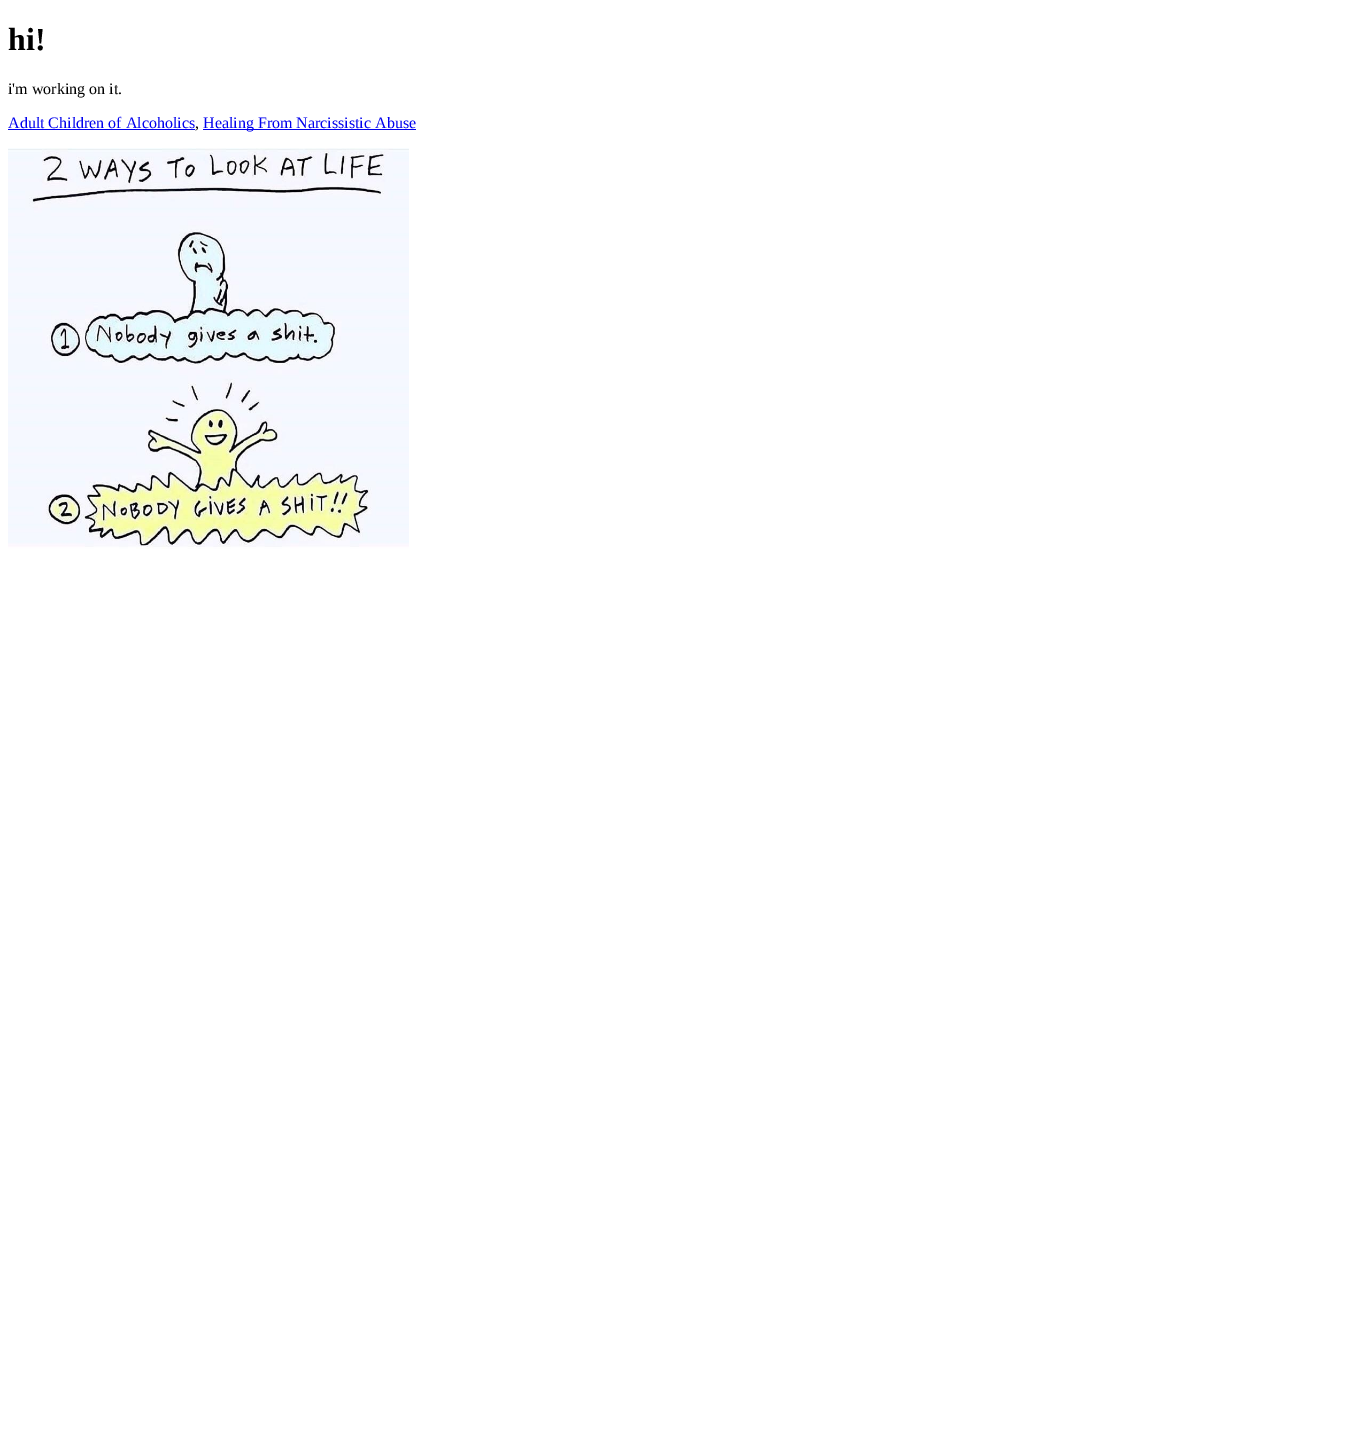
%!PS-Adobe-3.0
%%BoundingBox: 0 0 1352 1456
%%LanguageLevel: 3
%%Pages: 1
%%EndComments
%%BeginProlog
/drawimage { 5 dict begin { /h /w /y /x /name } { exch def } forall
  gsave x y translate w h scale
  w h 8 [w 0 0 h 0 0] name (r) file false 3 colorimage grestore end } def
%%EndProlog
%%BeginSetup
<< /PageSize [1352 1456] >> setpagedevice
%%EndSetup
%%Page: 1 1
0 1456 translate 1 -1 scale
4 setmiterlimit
1 setgray
0 0 1352 1456 rectfill
0 0 0.933 setrgbcolor
8 129 187 1 rectfill
203 129 213 1 rectfill
(images/1.raw) 8 148 401 401 drawimage
/LiberationSerif-Bold [32 0 0 -32 0 0] selectfont
0 setgray
8 50 moveto (hi!) show
/LiberationSerif-Regular [16 0 0 -16 0 0] selectfont
8 94 moveto (i'm working on it.) show
0 0 0.933 setrgbcolor
8 128 moveto (Adult Children of Alcoholics) show
0 setgray
195 128 moveto (,) show
0 0 0.933 setrgbcolor
203 128 moveto (Healing From Narcissistic Abuse) show
showpage
%%EOF
